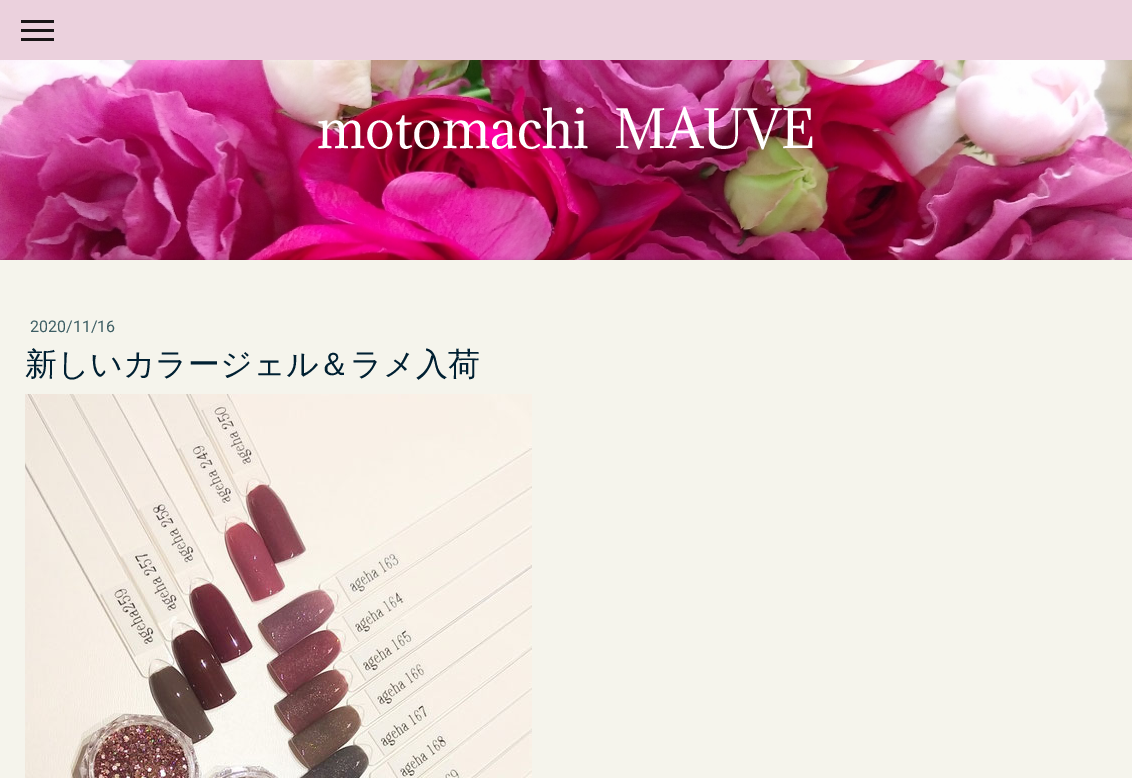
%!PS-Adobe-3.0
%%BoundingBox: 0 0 1132 778
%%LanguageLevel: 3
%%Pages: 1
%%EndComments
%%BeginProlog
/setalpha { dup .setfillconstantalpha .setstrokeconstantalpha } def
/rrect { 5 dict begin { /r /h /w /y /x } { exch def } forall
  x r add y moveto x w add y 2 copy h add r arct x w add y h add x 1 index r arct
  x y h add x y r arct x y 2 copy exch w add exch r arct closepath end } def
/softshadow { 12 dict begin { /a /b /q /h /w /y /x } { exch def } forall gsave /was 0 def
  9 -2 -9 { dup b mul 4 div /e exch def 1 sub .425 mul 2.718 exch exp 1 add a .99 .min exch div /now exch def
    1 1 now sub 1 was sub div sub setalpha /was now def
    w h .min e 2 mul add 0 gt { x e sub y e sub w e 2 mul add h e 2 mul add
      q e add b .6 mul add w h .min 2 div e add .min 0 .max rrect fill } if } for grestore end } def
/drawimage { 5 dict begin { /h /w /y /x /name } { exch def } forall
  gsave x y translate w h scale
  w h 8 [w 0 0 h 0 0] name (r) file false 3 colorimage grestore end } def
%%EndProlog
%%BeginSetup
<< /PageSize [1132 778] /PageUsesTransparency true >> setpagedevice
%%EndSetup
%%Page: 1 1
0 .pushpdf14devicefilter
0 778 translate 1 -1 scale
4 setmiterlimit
1 setgray
0 0 1132 778 rectfill
(images/1.raw) 0 60 1132 200 drawimage
0.922 0.82 0.867 setrgbcolor
0 0 1132 60 rectfill
0.094 0.082 0.086 setrgbcolor
21 29 33 3 rectfill
21 20 33 3 rectfill
21 38 33 3 rectfill
0 setgray
-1 262 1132 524 0 2.5 0.44 softshadow
0.961 0.957 0.925 setrgbcolor
0 260 1132 518 rectfill
(images/2.raw) 25 394 507 384 drawimage
/Adamina-Regular [50 0 0 -50 0 0] selectfont
1 setgray
317 148 moveto (motomachi  MAUVE) show
/Roboto-Regular [16 0 0 -16 0 0] selectfont
0.239 0.369 0.392 setrgbcolor
30 332 moveto (2020/11/16) show
/WenQuanYiZenHei-Medium [32 0 0 -32 0 0] selectfont
0 0.125 0.196 setrgbcolor
25 375 moveto (新しいカラージェル＆ラメ入荷) show
.poppdf14devicefilter showpage
%%EOF
